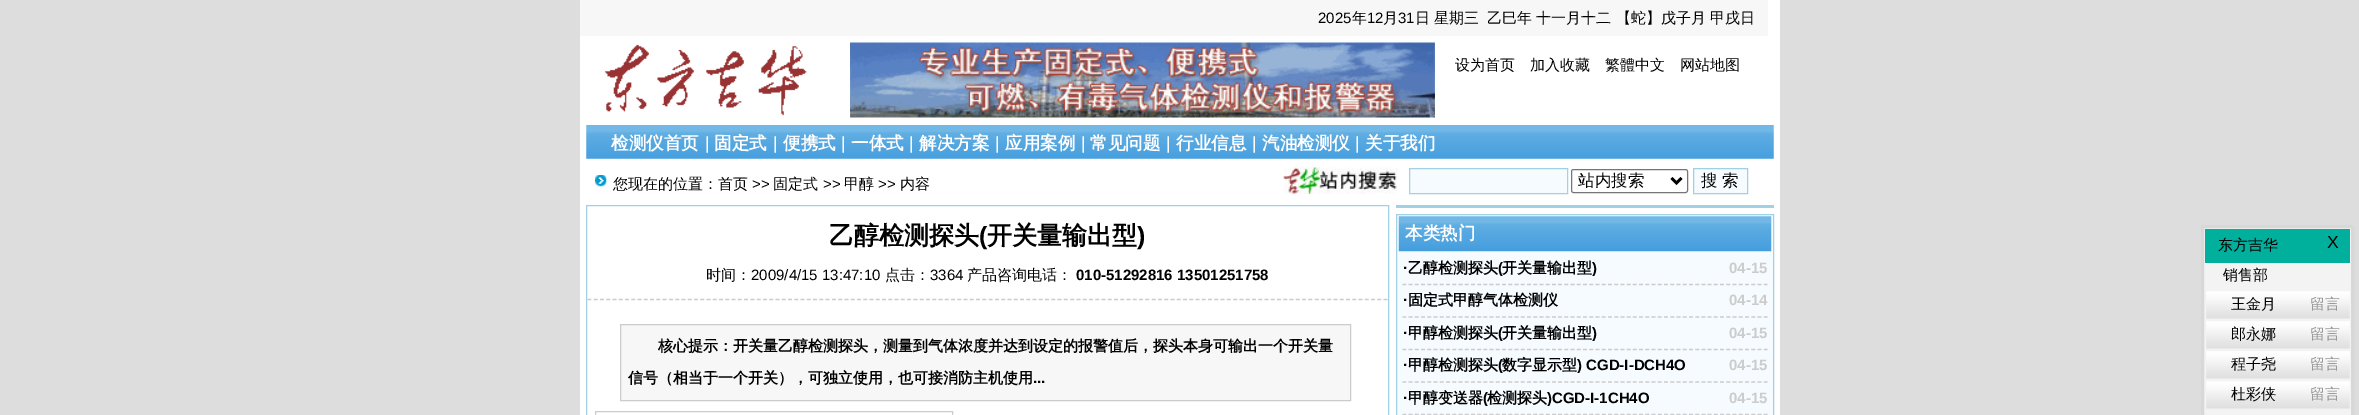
%!PS-Adobe-3.0
%%BoundingBox: 0 0 2359 415
%%LanguageLevel: 3
%%Pages: 1
%%EndComments
%%BeginProlog
/rrect { 5 dict begin { /r /h /w /y /x } { exch def } forall
  x r add y moveto x w add y 2 copy h add r arct x w add y h add x 1 index r arct
  x y h add x y r arct x y 2 copy exch w add exch r arct closepath end } def
/drawimage { 5 dict begin { /h /w /y /x /name } { exch def } forall
  gsave x y translate w h scale
  w h 8 [w 0 0 h 0 0] name (r) file false 3 colorimage grestore end } def
%%EndProlog
%%BeginSetup
<< /PageSize [2359 415] >> setpagedevice
%%EndSetup
%%Page: 1 1
0 415 translate 1 -1 scale
4 setmiterlimit
0.867 setgray
0 0 2359 415 rectfill
1 setgray
580 0 1200 415 rectfill
0.969 setgray
580 0 1188 36 rectfill
(images/1.raw) 604 44 203 72 drawimage
(images/2.raw) 850 42 585 76 drawimage
(images/3.raw) 586 125 1188 34 drawimage
(images/4.raw) 595 175 12 12 drawimage
(images/5.raw) 1283 167 115 27 drawimage
0.961 0.984 1 setrgbcolor
newpath 1409.5 168.5 moveto 1567.5 168.5 lineto 1567.5 193.5 lineto 1409.5 193.5 lineto closepath gsave fill grestore
0.635 0.816 0.898 setrgbcolor
stroke
0.463 setgray
1571.5 169.5 116 23 2 rrect stroke
0 setgray
2.5 setlinewidth
newpath 1671.5 178 moveto 1676.5 183 lineto 1681.5 178 lineto stroke
0.961 0.984 1 setrgbcolor
newpath 1693.5 168.5 moveto 1747.5 168.5 lineto 1747.5 193.5 lineto 1693.5 193.5 lineto closepath gsave fill grestore
0.635 0.816 0.898 setrgbcolor
1 setlinewidth
stroke
586.5 205.5 802 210 rectstroke
0.8 setgray
1.2 setlinewidth
[3.75 2.52] 0 setdash
newpath 587.5 299.5 moveto 1387.5 299.5 lineto stroke
0.969 setgray
newpath 620.5 324.5 moveto 1350.5 324.5 lineto 1350.5 400.5 lineto 620.5 400.5 lineto closepath gsave fill grestore
0.8 setgray
1 setlinewidth
[] 0 setdash
stroke
595.5 411.5 357 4 rectstroke
0.635 0.816 0.898 setrgbcolor
1396 205 378 3 rectfill
0.961 0.984 1 setrgbcolor
newpath 1396.5 214.5 moveto 1773.5 214.5 lineto 1773.5 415.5 lineto 1396.5 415.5 lineto closepath gsave fill grestore
0.635 0.816 0.898 setrgbcolor
stroke
(images/6.raw) 1398 216 374 36 drawimage
0.8 setgray
1.2 setlinewidth
[3.75 2.48] 0 setdash
newpath 1402.5 284.5 moveto 1767.5 284.5 lineto stroke
newpath 1402.5 317 moveto 1767.5 317 lineto stroke
newpath 1402.5 349.5 moveto 1767.5 349.5 lineto stroke
newpath 1402.5 382 moveto 1767.5 382 lineto stroke
newpath 1402.5 414.5 moveto 1767.5 414.5 lineto stroke
0.953 setgray
newpath 2202.5 226.5 moveto 2352.5 226.5 lineto 2352.5 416.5 lineto 2202.5 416.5 lineto closepath gsave fill grestore
0.847 setgray
3 setlinewidth
[] 0 setdash
stroke
0 0.69 0.616 setrgbcolor
2205 229 145 34 rectfill
(images/7.raw) 2206 291 144 28 drawimage
(images/7.raw) 2206 321 144 28 drawimage
(images/7.raw) 2206 351 144 28 drawimage
(images/8.raw) 2206 381 144 28 drawimage
/LiberationSans-Regular [15 0 0 -15 0 0] selectfont
0 setgray
1318 23 moveto (2025) show
/WenQuanYiZenHei-Medium [15 0 0 -15 0 0] selectfont
1352 23 moveto (年) show
/LiberationSans-Regular [15 0 0 -15 0 0] selectfont
1367 23 moveto (12) show
/WenQuanYiZenHei-Medium [15 0 0 -15 0 0] selectfont
1383 23 moveto (月) show
/LiberationSans-Regular [15 0 0 -15 0 0] selectfont
1398 23 moveto (31) show
/WenQuanYiZenHei-Medium [15 0 0 -15 0 0] selectfont
1415 23 moveto (日) show
1434 23 moveto (星期三) show
1487 23 moveto (乙巳年 十一月十二) show
1616 23 moveto (【蛇】戊子月 甲戌日) show
1455 70 moveto (设为首页) show
1530 70 moveto (加入收藏) show
1605 70 moveto (繁體中文) show
1680 70 moveto (网站地图) show
/WenQuanYiZenHei-Bold [17.5 0 0 -17.5 0 0] selectfont
1 setgray
611 149 moveto (检测仪首页) show
/LiberationSans-Regular [17.5 0 0 -17.5 0 0] selectfont
705 149 moveto (|) show
/WenQuanYiZenHei-Bold [17.5 0 0 -17.5 0 0] selectfont
714 149 moveto (固定式) show
/LiberationSans-Regular [17.5 0 0 -17.5 0 0] selectfont
773 149 moveto (|) show
/WenQuanYiZenHei-Bold [17.5 0 0 -17.5 0 0] selectfont
783 149 moveto (便携式) show
/LiberationSans-Regular [17.5 0 0 -17.5 0 0] selectfont
841 149 moveto (|) show
/WenQuanYiZenHei-Bold [17.5 0 0 -17.5 0 0] selectfont
851 149 moveto (一体式) show
/LiberationSans-Regular [17.5 0 0 -17.5 0 0] selectfont
909 149 moveto (|) show
/WenQuanYiZenHei-Bold [17.5 0 0 -17.5 0 0] selectfont
919 149 moveto (解决方案) show
/LiberationSans-Regular [17.5 0 0 -17.5 0 0] selectfont
995 149 moveto (|) show
/WenQuanYiZenHei-Bold [17.5 0 0 -17.5 0 0] selectfont
1005 149 moveto (应用案例) show
/LiberationSans-Regular [17.5 0 0 -17.5 0 0] selectfont
1081 149 moveto (|) show
/WenQuanYiZenHei-Bold [17.5 0 0 -17.5 0 0] selectfont
1090 149 moveto (常见问题) show
/LiberationSans-Regular [17.5 0 0 -17.5 0 0] selectfont
1166 149 moveto (|) show
/WenQuanYiZenHei-Bold [17.5 0 0 -17.5 0 0] selectfont
1176 149 moveto (行业信息) show
/LiberationSans-Regular [17.5 0 0 -17.5 0 0] selectfont
1252 149 moveto (|) show
/WenQuanYiZenHei-Bold [17.5 0 0 -17.5 0 0] selectfont
1262 149 moveto (汽油检测仪) show
/LiberationSans-Regular [17.5 0 0 -17.5 0 0] selectfont
1355 149 moveto (|) show
/WenQuanYiZenHei-Bold [17.5 0 0 -17.5 0 0] selectfont
1365 149 moveto (关于我们) show
/WenQuanYiZenHei-Medium [15 0 0 -15 0 0] selectfont
0 setgray
613 189 moveto (您现在的位置：首页) show
/LiberationSans-Regular [15 0 0 -15 0 0] selectfont
752 189 moveto (>>) show
/WenQuanYiZenHei-Medium [15 0 0 -15 0 0] selectfont
773 189 moveto (固定式) show
/LiberationSans-Regular [15 0 0 -15 0 0] selectfont
823 189 moveto (>>) show
/WenQuanYiZenHei-Medium [15 0 0 -15 0 0] selectfont
844 189 moveto (甲醇) show
/LiberationSans-Regular [15 0 0 -15 0 0] selectfont
878 189 moveto (>>) show
/WenQuanYiZenHei-Medium [15 0 0 -15 0 0] selectfont
900 189 moveto (内容) show
/WenQuanYiZenHei-Medium [16.5 0 0 -16.5 0 0] selectfont
1578 186 moveto (站内搜索) show
1701 186 moveto (搜 索) show
/WenQuanYiZenHei-Bold [25 0 0 -25 0 0] selectfont
829 244 moveto (乙醇检测探头) show
/LiberationSans-Bold [25 0 0 -25 0 0] selectfont
979 244 moveto (\() show
/WenQuanYiZenHei-Bold [25 0 0 -25 0 0] selectfont
987 244 moveto (开关量输出型) show
/LiberationSans-Bold [25 0 0 -25 0 0] selectfont
1137 244 moveto (\)) show
/WenQuanYiZenHei-Medium [15 0 0 -15 0 0] selectfont
706 280 moveto (时间：) show
/LiberationSans-Regular [15 0 0 -15 0 0] selectfont
751 280 moveto (2009/4/15 13:47:10) show
/WenQuanYiZenHei-Medium [15 0 0 -15 0 0] selectfont
885 280 moveto (点击：) show
/LiberationSans-Regular [15 0 0 -15 0 0] selectfont
930 280 moveto (3364) show
/WenQuanYiZenHei-Medium [15 0 0 -15 0 0] selectfont
967 280 moveto (产品咨询电话：) show
/LiberationSans-Bold [15 0 0 -15 0 0] selectfont
1076 280 moveto (010-51292816 13501251758) show
/WenQuanYiZenHei-Bold [15 0 0 -15 0 0] selectfont
658 351 moveto (核心提示：开关量乙醇检测探头，测量到气体浓度并达到设定的报警值后，探头本身可输出一个开关量) show
628 383 moveto (信号（相当于一个开关），可独立使用，也可接消防主机使用) show
/LiberationSans-Bold [15 0 0 -15 0 0] selectfont
1033 383 moveto (...) show
/WenQuanYiZenHei-Bold [17.5 0 0 -17.5 0 0] selectfont
1 setgray
1405 239 moveto (本类热门) show
/LiberationSans-Bold [15 0 0 -15 0 0] selectfont
0 setgray
1403 273 moveto (·) show
/WenQuanYiZenHei-Bold [15 0 0 -15 0 0] selectfont
1408 273 moveto (乙醇检测探头) show
/LiberationSans-Bold [15 0 0 -15 0 0] selectfont
1498 273 moveto (\() show
/WenQuanYiZenHei-Bold [15 0 0 -15 0 0] selectfont
1502 273 moveto (开关量输出型) show
/LiberationSans-Bold [15 0 0 -15 0 0] selectfont
1592 273 moveto (\)) show
0.8 setgray
1729 273 moveto (04-15) show
0 setgray
1403 305 moveto (·) show
/WenQuanYiZenHei-Bold [15 0 0 -15 0 0] selectfont
1408 305 moveto (固定式甲醇气体检测仪) show
/LiberationSans-Bold [15 0 0 -15 0 0] selectfont
0.8 setgray
1729 305 moveto (04-14) show
0 setgray
1403 338 moveto (·) show
/WenQuanYiZenHei-Bold [15 0 0 -15 0 0] selectfont
1408 338 moveto (甲醇检测探头) show
/LiberationSans-Bold [15 0 0 -15 0 0] selectfont
1498 338 moveto (\() show
/WenQuanYiZenHei-Bold [15 0 0 -15 0 0] selectfont
1502 338 moveto (开关量输出型) show
/LiberationSans-Bold [15 0 0 -15 0 0] selectfont
1592 338 moveto (\)) show
0.8 setgray
1729 338 moveto (04-15) show
0 setgray
1403 370 moveto (·) show
/WenQuanYiZenHei-Bold [15 0 0 -15 0 0] selectfont
1408 370 moveto (甲醇检测探头) show
/LiberationSans-Bold [15 0 0 -15 0 0] selectfont
1498 370 moveto (\() show
/WenQuanYiZenHei-Bold [15 0 0 -15 0 0] selectfont
1502 370 moveto (数字显示型) show
/LiberationSans-Bold [15 0 0 -15 0 0] selectfont
1577 370 moveto (\) CGD-I-DCH4O) show
0.8 setgray
1729 370 moveto (04-15) show
0 setgray
1403 403 moveto (·) show
/WenQuanYiZenHei-Bold [15 0 0 -15 0 0] selectfont
1408 403 moveto (甲醇变送器) show
/LiberationSans-Bold [15 0 0 -15 0 0] selectfont
1483 403 moveto (\() show
/WenQuanYiZenHei-Bold [15 0 0 -15 0 0] selectfont
1487 403 moveto (检测探头) show
/LiberationSans-Bold [15 0 0 -15 0 0] selectfont
1547 403 moveto (\)CGD-I-1CH4O) show
0.8 setgray
1729 403 moveto (04-15) show
/WenQuanYiZenHei-Medium [15 0 0 -15 0 0] selectfont
0 setgray
2218 250 moveto (东方吉华) show
/LiberationSans-Regular [17.5 0 0 -17.5 0 0] selectfont
2327 248 moveto (X) show
/WenQuanYiZenHei-Medium [15 0 0 -15 0 0] selectfont
2223 280 moveto (销售部) show
2231 309 moveto (王金月) show
0.6 setgray
2310 309 moveto (留言) show
0 setgray
2231 339 moveto (郎永娜) show
0.6 setgray
2310 339 moveto (留言) show
0 setgray
2231 369 moveto (程子尧) show
0.6 setgray
2310 369 moveto (留言) show
0 setgray
2231 399 moveto (杜彩侠) show
0.6 setgray
2310 399 moveto (留言) show
showpage
%%EOF
